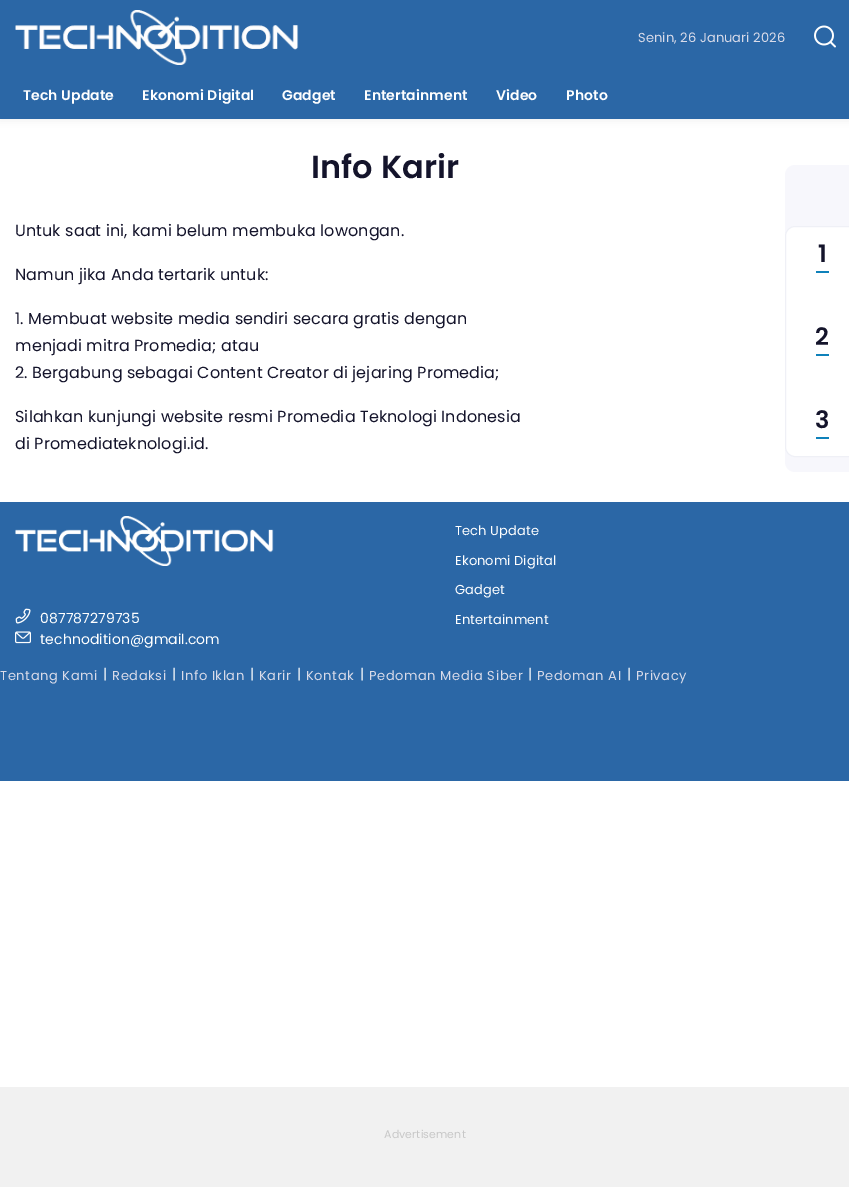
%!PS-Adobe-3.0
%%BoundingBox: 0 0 849 1187
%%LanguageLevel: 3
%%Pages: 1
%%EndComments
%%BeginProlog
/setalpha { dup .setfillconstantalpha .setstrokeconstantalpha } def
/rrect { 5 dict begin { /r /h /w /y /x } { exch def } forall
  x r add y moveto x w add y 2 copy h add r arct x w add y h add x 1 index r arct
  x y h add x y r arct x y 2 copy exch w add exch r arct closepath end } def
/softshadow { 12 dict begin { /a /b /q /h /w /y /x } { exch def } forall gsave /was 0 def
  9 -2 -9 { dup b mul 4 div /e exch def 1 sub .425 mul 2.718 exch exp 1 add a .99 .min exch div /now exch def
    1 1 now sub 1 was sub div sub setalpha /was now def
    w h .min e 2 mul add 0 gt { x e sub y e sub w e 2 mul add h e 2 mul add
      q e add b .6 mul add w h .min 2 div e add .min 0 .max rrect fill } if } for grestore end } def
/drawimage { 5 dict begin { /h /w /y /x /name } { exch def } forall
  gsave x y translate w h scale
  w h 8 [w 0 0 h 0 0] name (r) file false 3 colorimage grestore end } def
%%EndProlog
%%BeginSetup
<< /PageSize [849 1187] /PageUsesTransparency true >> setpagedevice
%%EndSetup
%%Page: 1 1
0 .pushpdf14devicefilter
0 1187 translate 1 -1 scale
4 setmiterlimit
1 setgray
0 0 849 1187 rectfill
0 setgray
0 2 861 119 0 4 0.06 softshadow
0.169 0.404 0.651 setrgbcolor
0 0 849 119 rectfill
(images/1.raw) 15 10 284 55 drawimage
(images/2.raw) 814 25 22 23 drawimage
0.969 0.969 0.988 setrgbcolor
785 165 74 307 10 rrect fill
1 setgray
785.5 226.5 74 230 9.5 rrect gsave fill grestore
0.937 0.941 0.965 setrgbcolor
stroke
0.059 0.506 0.729 setrgbcolor
816 271 13 2 rectfill
816 354 13 2 rectfill
816 437 13 2 rectfill
0.169 0.404 0.651 setrgbcolor
0 502 849 279 rectfill
(images/3.raw) 15 516 259 50 drawimage
(images/4.raw) 15 608 16 16 drawimage
(images/5.raw) 15 631 16 13 drawimage
0.945 setgray
0 1087 849 100 rectfill
/Poppins-Regular [13 0 0 -13 0 0] selectfont
0.851 0.859 0.914 setrgbcolor
638 42 moveto 0.1 0 (Senin, 26 Januari 2026) ashow
/Poppins-SemiBold [14 0 0 -14 0 0] selectfont
1 setgray
23 100 moveto 0.1 0 (Tech Update) ashow
142 100 moveto 0.1 0 (Ekonomi Digital) ashow
282 100 moveto 0.1 0 (Gadget) ashow
364 100 moveto 0.1 0 (Entertainment) ashow
496 100 moveto 0.1 0 (Video) ashow
566 100 moveto 0.1 0 (Photo) ashow
/Poppins-SemiBold [32 0 0 -32 0 0] selectfont
0.078 0.078 0.169 setrgbcolor
311 178 moveto 0.1 0 (Info Karir) ashow
/Poppins-Regular [16 0 0 -16 0 0] selectfont
15 236 moveto 0.1 0 (Untuk saat ini, kami belum membuka lowongan.) ashow
15 280 moveto 0.1 0 (Namun jika Anda tertarik untuk:) ashow
15 324 moveto 0.1 0 (1. Membuat website media sendiri secara gratis dengan) ashow
15 351 moveto 0.1 0 (menjadi mitra Promedia; atau) ashow
15 378 moveto 0.1 0 (2. Bergabung sebagai Content Creator di jejaring Promedia;) ashow
15 422 moveto 0.1 0 (Silahkan kunjungi website resmi Promedia Teknologi Indonesia) ashow
15 449 moveto 0.1 0 (di Promediateknologi.id.) ashow
/Poppins-SemiBold [24 0 0 -24 0 0] selectfont
818 262 moveto 0.1 0 (1) ashow
815 345 moveto 0.1 0 (2) ashow
815 428 moveto 0.1 0 (3) ashow
/Poppins-Regular [13 0 0 -13 0 0] selectfont
1 setgray
455 535 moveto 0.1 0 (Tech Update) ashow
455 565 moveto 0.1 0 (Ekonomi Digital) ashow
455 594 moveto 0.1 0 (Gadget) ashow
455 624 moveto 0.1 0 (Entertainment) ashow
/Poppins-Regular [14 0 0 -14 0 0] selectfont
40 623 moveto 0.1 0 (087787279735) ashow
40 644 moveto 0.1 0 (technodition@gmail.com) ashow
/Poppins-Regular [13 0 0 -13 0 0] selectfont
0.851 0.859 0.914 setrgbcolor
0 680 moveto 0.6 0 (Tentang Kami) ashow
/Poppins-Regular [14 0 0 -14 0 0] selectfont
1 setgray
103 679 moveto 0.6 0 (|) ashow
/Poppins-Regular [13 0 0 -13 0 0] selectfont
0.851 0.859 0.914 setrgbcolor
112 680 moveto 0.6 0 (Redaksi) ashow
/Poppins-Regular [14 0 0 -14 0 0] selectfont
1 setgray
172 679 moveto 0.6 0 (|) ashow
/Poppins-Regular [13 0 0 -13 0 0] selectfont
0.851 0.859 0.914 setrgbcolor
181 680 moveto 0.6 0 (Info Iklan) ashow
/Poppins-Regular [14 0 0 -14 0 0] selectfont
1 setgray
250 679 moveto 0.6 0 (|) ashow
/Poppins-Regular [13 0 0 -13 0 0] selectfont
0.851 0.859 0.914 setrgbcolor
259 680 moveto 0.6 0 (Karir) ashow
/Poppins-Regular [14 0 0 -14 0 0] selectfont
1 setgray
297 679 moveto 0.6 0 (|) ashow
/Poppins-Regular [13 0 0 -13 0 0] selectfont
0.851 0.859 0.914 setrgbcolor
306 680 moveto 0.6 0 (Kontak) ashow
/Poppins-Regular [14 0 0 -14 0 0] selectfont
1 setgray
360 679 moveto 0.6 0 (|) ashow
/Poppins-Regular [13 0 0 -13 0 0] selectfont
0.851 0.859 0.914 setrgbcolor
369 680 moveto 0.6 0 (Pedoman Media Siber) ashow
/Poppins-Regular [14 0 0 -14 0 0] selectfont
1 setgray
528 679 moveto 0.6 0 (|) ashow
/Poppins-Regular [13 0 0 -13 0 0] selectfont
0.851 0.859 0.914 setrgbcolor
537 680 moveto 0.6 0 (Pedoman AI) ashow
/Poppins-Regular [14 0 0 -14 0 0] selectfont
1 setgray
627 679 moveto 0.6 0 (|) ashow
/Poppins-Regular [13 0 0 -13 0 0] selectfont
0.851 0.859 0.914 setrgbcolor
636 680 moveto 0.6 0 (Privacy) ashow
/Poppins-Regular [11 0 0 -11 0 0] selectfont
0.78 setgray
384 1138 moveto 0.1 0 (Advertisement) ashow
.poppdf14devicefilter showpage
%%EOF
